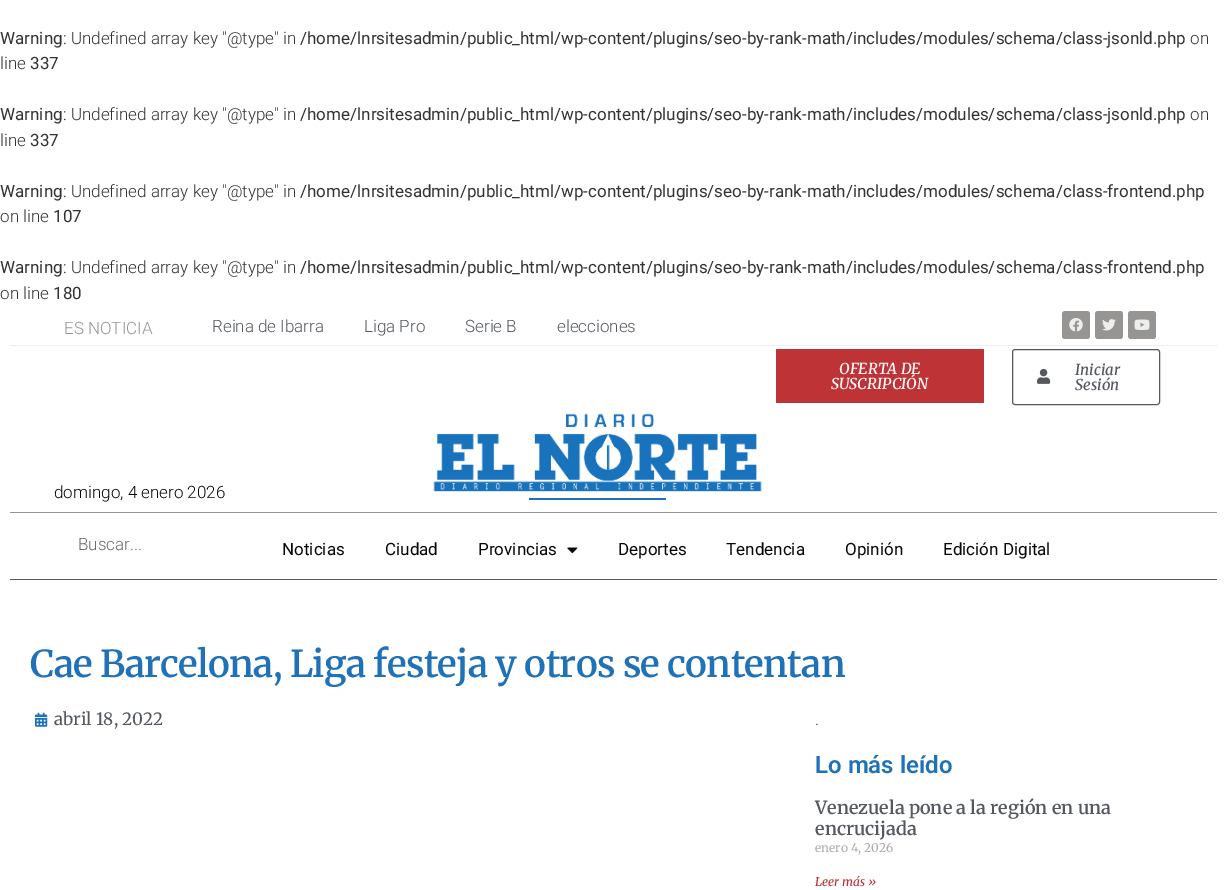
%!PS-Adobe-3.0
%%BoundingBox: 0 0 1227 890
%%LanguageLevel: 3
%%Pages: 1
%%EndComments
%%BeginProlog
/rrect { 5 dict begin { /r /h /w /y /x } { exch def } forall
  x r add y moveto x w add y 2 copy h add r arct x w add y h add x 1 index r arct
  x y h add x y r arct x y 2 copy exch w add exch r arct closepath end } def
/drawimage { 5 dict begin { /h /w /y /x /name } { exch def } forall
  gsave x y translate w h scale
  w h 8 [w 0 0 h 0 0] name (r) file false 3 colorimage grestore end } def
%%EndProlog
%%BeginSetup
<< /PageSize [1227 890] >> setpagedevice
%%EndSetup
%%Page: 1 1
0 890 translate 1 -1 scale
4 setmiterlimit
1 setgray
0 0 1227 890 rectfill
0.588 0.584 0.58 setrgbcolor
1062 311 28 28 3 rrect fill
(images/1.raw) 1069 318 14 14 drawimage
1095 311 28 28 3 rrect fill
(images/2.raw) 1102 319 14 12 drawimage
1128 311 28 28 3 rrect fill
(images/3.raw) 1134 319 16 11 drawimage
0.933 setgray
10 345 1207 1 rectfill
0.745 0.2 0.212 setrgbcolor
776 349 208 54 rectfill
0.329 0.349 0.373 setrgbcolor
1012.5 349.5 147 55 2.5 rrect stroke
(images/4.raw) 1037 368 14 16 drawimage
(images/5.raw) 433 413 329 79 drawimage
0.122 0.443 0.722 setrgbcolor
529 498 137 2 rectfill
0.588 0.584 0.58 setrgbcolor
10 512 1207 1 rectfill
(images/6.raw) 567 547 11 7 drawimage
0.329 0.349 0.373 setrgbcolor
10 579 1207 1 rectfill
(images/7.raw) 35 712 13 15 drawimage
/Roboto-Regular [17 0 0 -17 0 0] selectfont
0.2 setgray
0 44 moveto (Warning) show
/Roboto-Light [17 0 0 -17 0 0] selectfont
63 44 moveto (: Undefined array key "@type" in) show
/Roboto-Regular [17 0 0 -17 0 0] selectfont
300 44 moveto (/home/lnrsitesadmin/public_html/wp-content/plugins/seo-by-rank-math/includes/modules/schema/class-jsonld.php) show
/Roboto-Light [17 0 0 -17 0 0] selectfont
1190 44 moveto (on) show
0 69 moveto (line) show
/Roboto-Regular [17 0 0 -17 0 0] selectfont
30 69 moveto (337) show
0 120 moveto (Warning) show
/Roboto-Light [17 0 0 -17 0 0] selectfont
63 120 moveto (: Undefined array key "@type" in) show
/Roboto-Regular [17 0 0 -17 0 0] selectfont
300 120 moveto (/home/lnrsitesadmin/public_html/wp-content/plugins/seo-by-rank-math/includes/modules/schema/class-jsonld.php) show
/Roboto-Light [17 0 0 -17 0 0] selectfont
1190 120 moveto (on) show
0 146 moveto (line) show
/Roboto-Regular [17 0 0 -17 0 0] selectfont
30 146 moveto (337) show
0 197 moveto (Warning) show
/Roboto-Light [17 0 0 -17 0 0] selectfont
63 197 moveto (: Undefined array key "@type" in) show
/Roboto-Regular [17 0 0 -17 0 0] selectfont
300 197 moveto (/home/lnrsitesadmin/public_html/wp-content/plugins/seo-by-rank-math/includes/modules/schema/class-frontend.php) show
/Roboto-Light [17 0 0 -17 0 0] selectfont
0 222 moveto (on line) show
/Roboto-Regular [17 0 0 -17 0 0] selectfont
53 222 moveto (107) show
0 273 moveto (Warning) show
/Roboto-Light [17 0 0 -17 0 0] selectfont
63 273 moveto (: Undefined array key "@type" in) show
/Roboto-Regular [17 0 0 -17 0 0] selectfont
300 273 moveto (/home/lnrsitesadmin/public_html/wp-content/plugins/seo-by-rank-math/includes/modules/schema/class-frontend.php) show
/Roboto-Light [17 0 0 -17 0 0] selectfont
0 299 moveto (on line) show
/Roboto-Regular [17 0 0 -17 0 0] selectfont
53 299 moveto (180) show
/Roboto-Light [17 0 0 -17 0 0] selectfont
0.588 0.584 0.58 setrgbcolor
64 334 moveto (ES NOTICIA) show
0.329 0.349 0.373 setrgbcolor
212 332 moveto (Reina de Ibarra) show
364 332 moveto (Liga Pro) show
465 332 moveto (Serie B) show
557 332 moveto (elecciones) show
/Merriweather-MediumItalic [15 0 0 -15 0 0] selectfont
1 setgray
839 374 moveto (OFERTA DE) show
831 389 moveto (SUSCRIPCIÓN) show
0.329 0.349 0.373 setrgbcolor
1075 375 moveto (Iniciar) show
1075 390 moveto (Sesión) show
/Roboto-Light [17 0 0 -17 0 0] selectfont
0.027 setgray
54 498 moveto (domingo, 4 enero 2026) show
0.416 setgray
78 550 moveto (Buscar...) show
/Roboto-Regular [17 0 0 -17 0 0] selectfont
0.027 setgray
282 555 moveto (Noticias) show
385 555 moveto (Ciudad) show
478 555 moveto (Provincias) show
618 555 moveto (Deportes) show
726 555 moveto (Tendencia) show
845 555 moveto (Opinión) show
943 555 moveto (Edición Digital) show
/Merriweather-SemiBold [37 0 0 -37 0 0] selectfont
0.122 0.443 0.722 setrgbcolor
30 677 moveto -0.7 0 (Cae Barcelona, Liga festeja y otros se contentan) ashow
/Merriweather-Regular [17 0 0 -17 0 0] selectfont
0.329 0.349 0.373 setrgbcolor
54 725 moveto (abril 18, 2022) show
/Roboto-Light [17 0 0 -17 0 0] selectfont
0.2 setgray
815 725 moveto (.) show
/Roboto-SemiBold [24 0 0 -24 0 0] selectfont
0.122 0.443 0.722 setrgbcolor
815 773 moveto (Lo más leído) show
/Merriweather-SemiBold [18 0 0 -18 0 0] selectfont
0.329 0.349 0.373 setrgbcolor
815 814 moveto (Venezuela pone a la región en una) show
815 835 moveto (encrucijada) show
/Merriweather-Regular [12 0 0 -12 0 0] selectfont
0.678 setgray
815 852 moveto (enero 4, 2026) show
/Merriweather-MediumItalic [12 0 0 -12 0 0] selectfont
0.745 0.2 0.212 setrgbcolor
815 886 moveto (Leer más ») show
showpage
%%EOF
